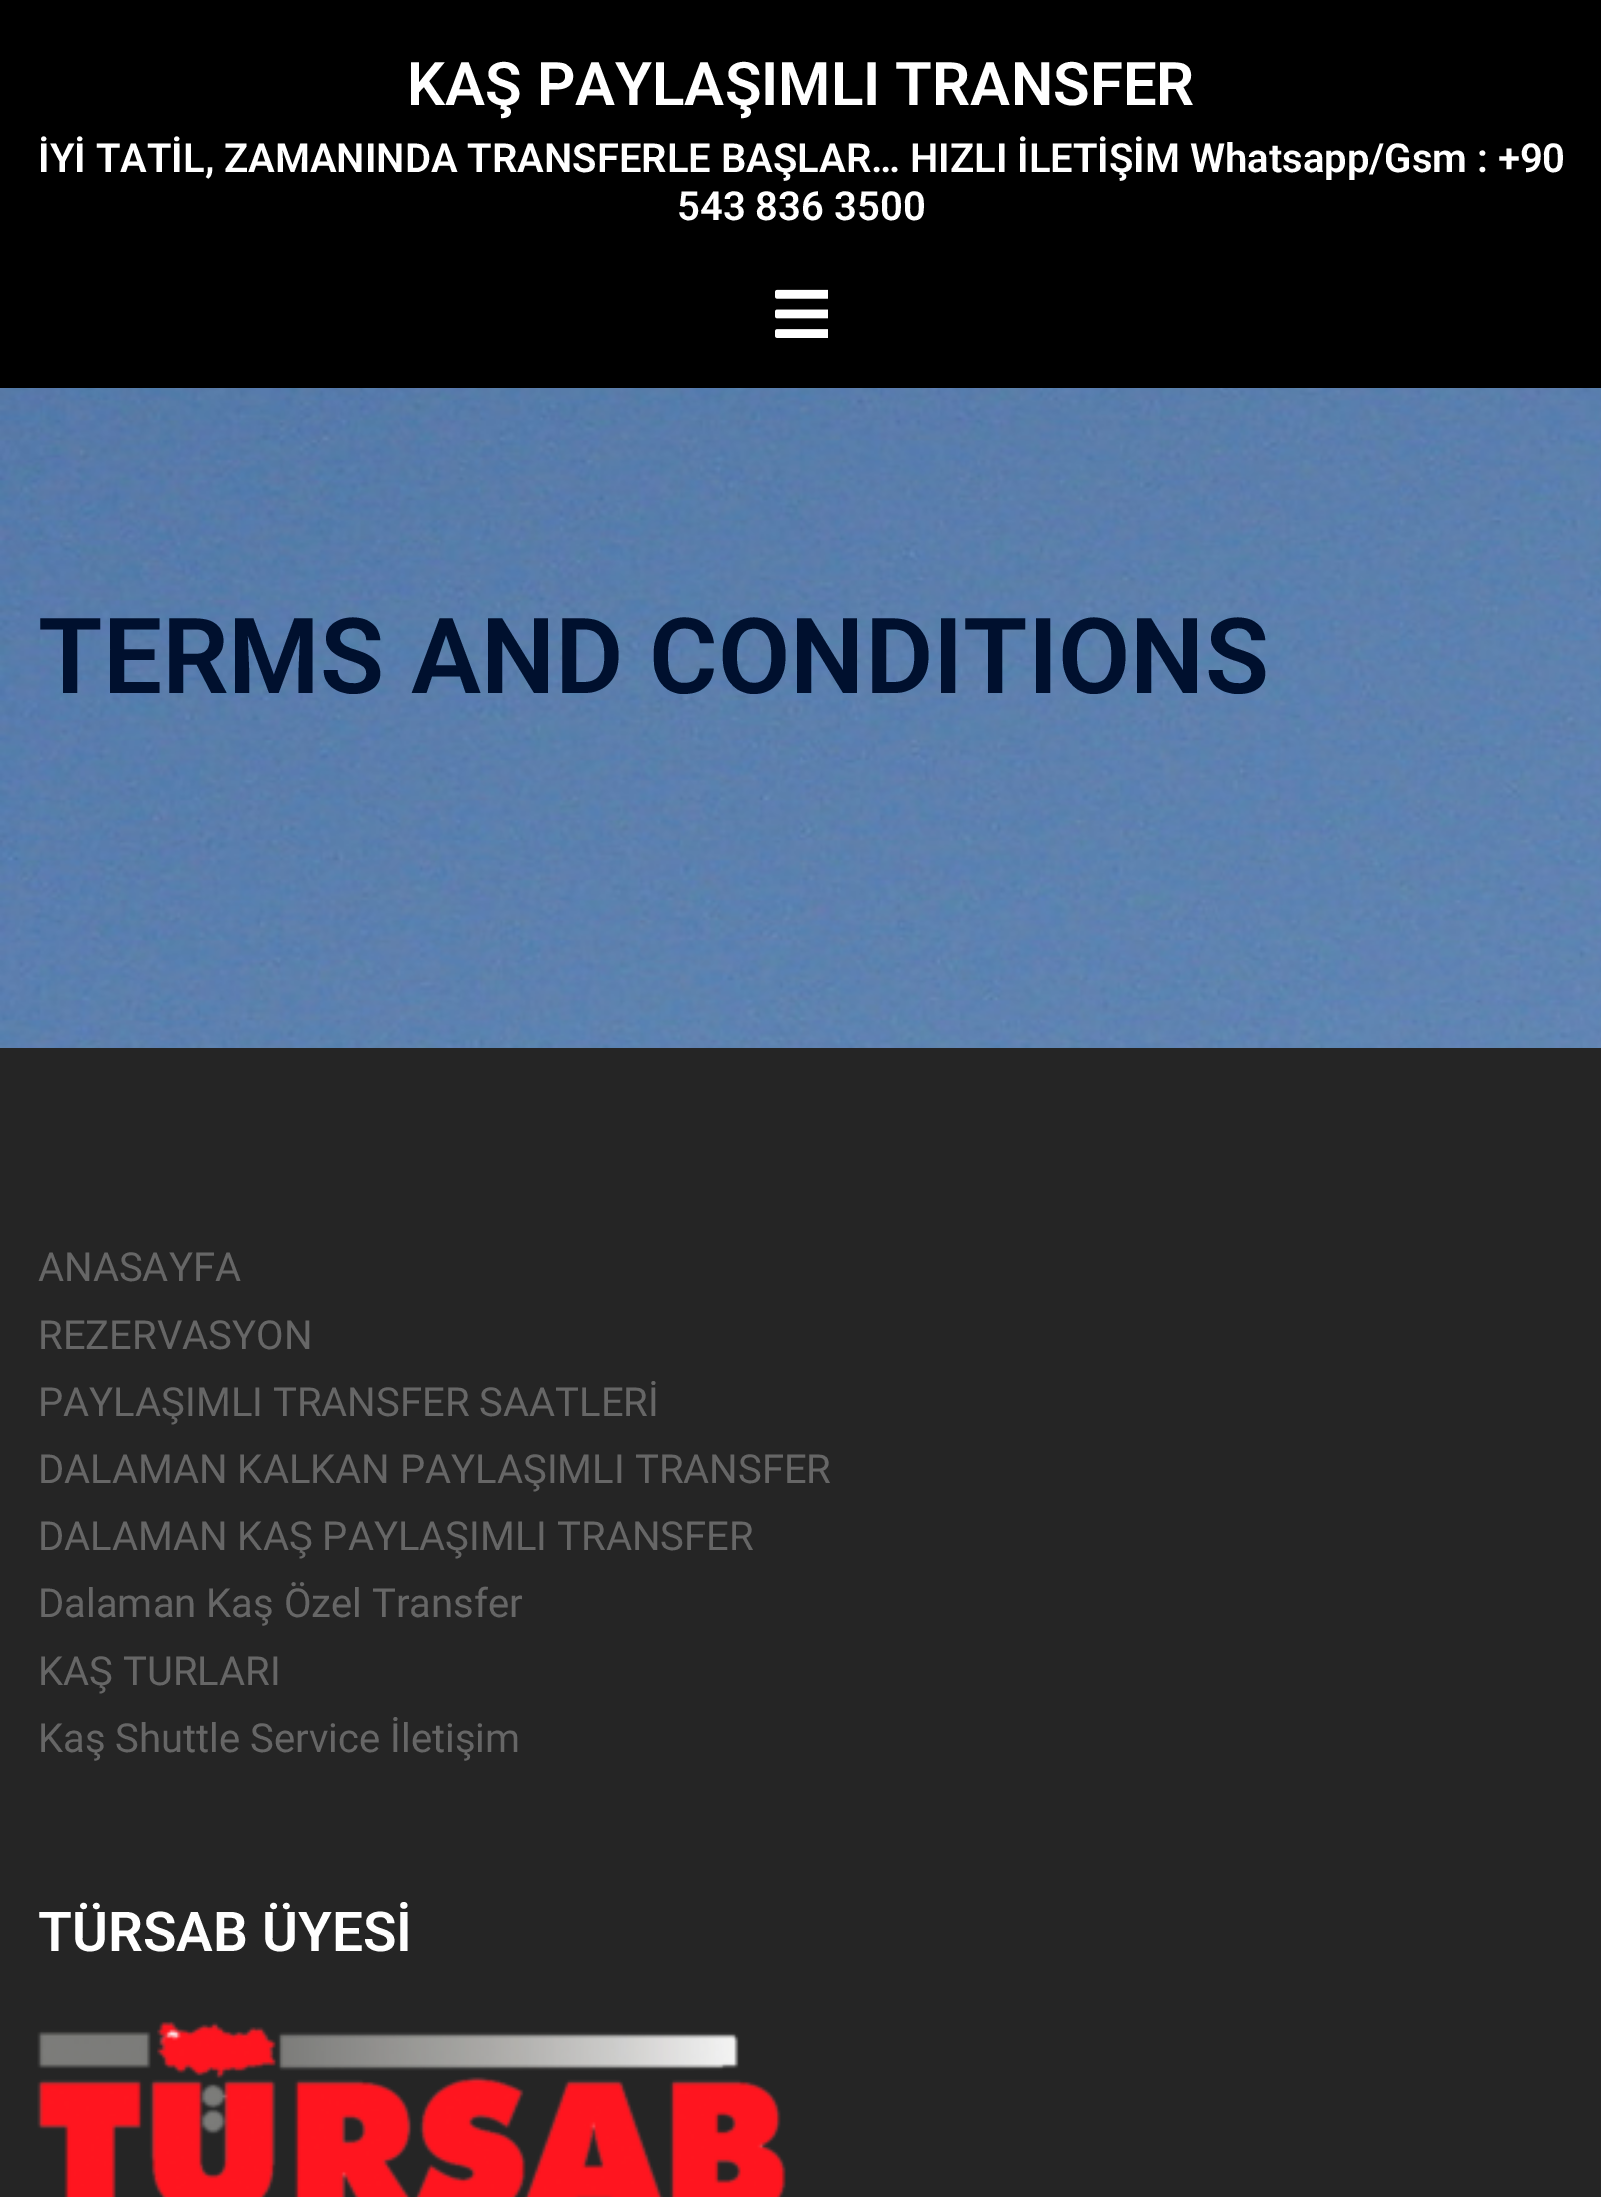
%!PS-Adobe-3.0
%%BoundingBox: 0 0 1601 2197
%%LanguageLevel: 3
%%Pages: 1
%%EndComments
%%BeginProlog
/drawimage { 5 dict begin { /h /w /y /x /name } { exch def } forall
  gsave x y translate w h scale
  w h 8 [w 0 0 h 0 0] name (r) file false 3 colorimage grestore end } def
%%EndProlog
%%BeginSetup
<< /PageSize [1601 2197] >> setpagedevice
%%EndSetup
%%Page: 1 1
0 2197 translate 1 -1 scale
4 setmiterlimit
1 setgray
0 0 1601 2197 rectfill
(images/1.raw) 0 388 1601 660 drawimage
0 setgray
0 0 1601 388 rectfill
(images/2.raw) 775 289 53 49 drawimage
0.145 setgray
0 1048 1601 1149 rectfill
(images/3.raw) 37 2020 749 177 drawimage
/Roboto-SemiBold [60 0 0 -60 0 0] selectfont
1 setgray
407 105 moveto (KAŞ PAYLAŞIMLI TRANSFER) show
/Roboto-SemiBold [40 0 0 -40 0 0] selectfont
38 172 moveto (İYİ TATİL, ZAMANINDA TRANSFERLE BAŞLAR… HIZLI İLETİŞİM Whatsapp/Gsm : +90) show
677 220 moveto (543 836 3500) show
/Roboto-SemiBold [105 0 0 -105 0 0] selectfont
0 0.063 0.18 setrgbcolor
38 693 moveto (TERMS AND CONDITIONS) show
/Roboto-Regular [40 0 0 -40 0 0] selectfont
0.4 setgray
38 1281 moveto (ANASAYFA) show
38 1349 moveto (REZERVASYON) show
38 1416 moveto (PAYLAŞIMLI TRANSFER SAATLERİ) show
38 1483 moveto (DALAMAN KALKAN PAYLAŞIMLI TRANSFER) show
38 1550 moveto (DALAMAN KAŞ PAYLAŞIMLI TRANSFER) show
38 1617 moveto (Dalaman Kaş Özel Transfer) show
38 1685 moveto (KAŞ TURLARI) show
38 1752 moveto (Kaş Shuttle Service İletişim) show
/Roboto-SemiBold [55 0 0 -55 0 0] selectfont
1 setgray
38 1951 moveto (TÜRSAB ÜYESİ) show
showpage
%%EOF
